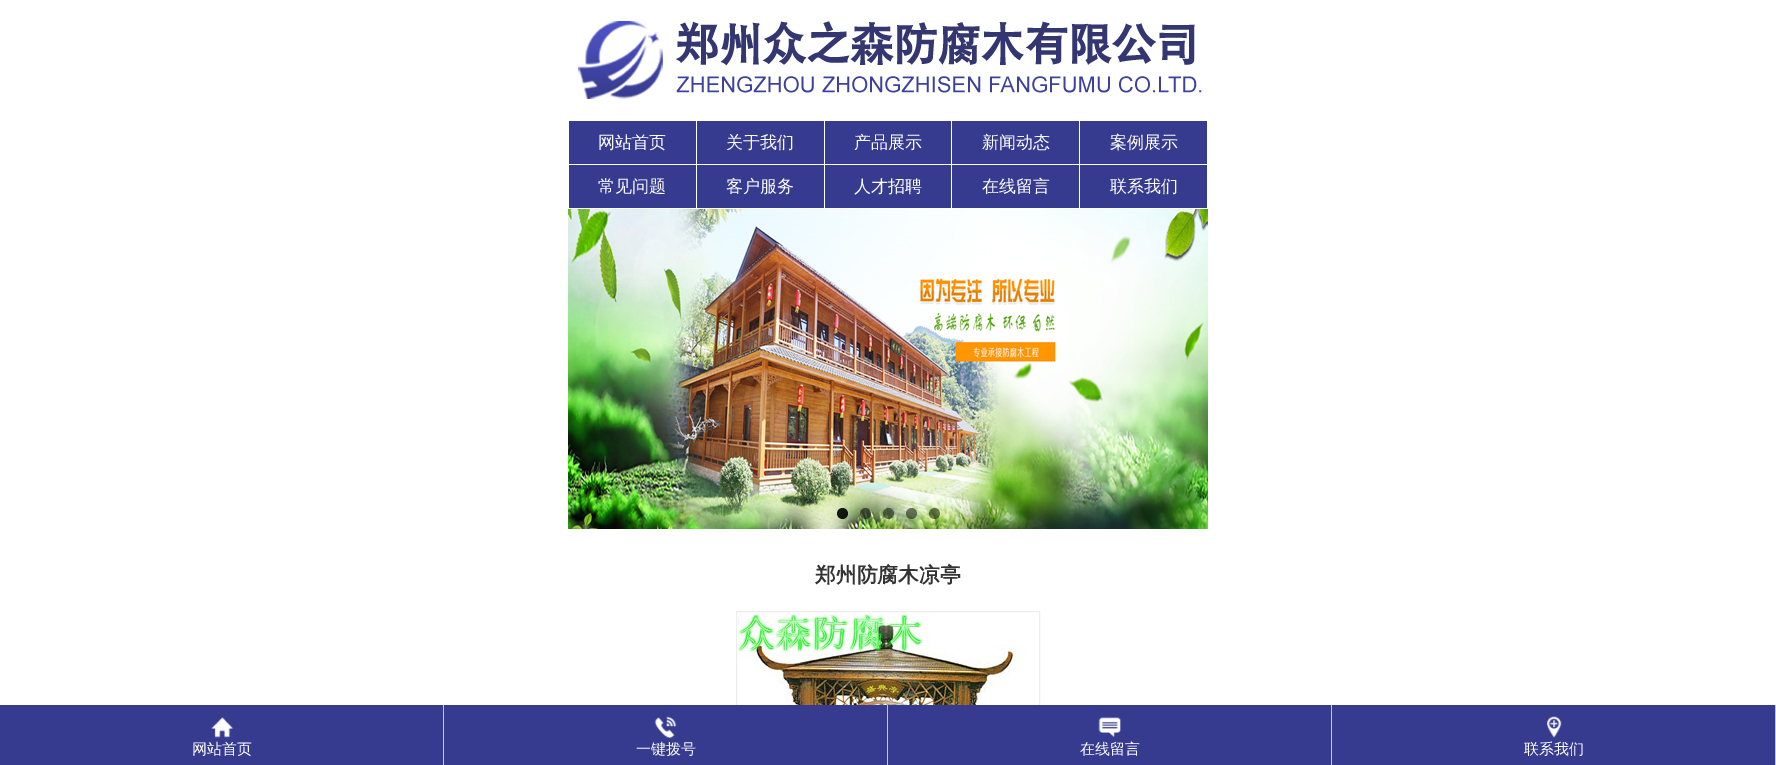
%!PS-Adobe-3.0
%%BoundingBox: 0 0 1776 765
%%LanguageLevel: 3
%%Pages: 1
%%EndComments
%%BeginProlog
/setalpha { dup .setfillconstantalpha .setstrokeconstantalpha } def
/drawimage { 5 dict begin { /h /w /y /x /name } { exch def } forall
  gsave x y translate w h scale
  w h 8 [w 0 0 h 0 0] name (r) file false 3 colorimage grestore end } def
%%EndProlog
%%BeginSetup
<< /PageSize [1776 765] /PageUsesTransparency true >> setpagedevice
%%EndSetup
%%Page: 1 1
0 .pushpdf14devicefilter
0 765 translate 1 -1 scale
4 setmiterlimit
1 setgray
0 0 1776 765 rectfill
(images/1.raw) 578 18 627 81 drawimage
0.216 0.231 0.561 setrgbcolor
569 121 127 43 rectfill
697 121 127 43 rectfill
825 121 126 43 rectfill
952 121 127 43 rectfill
1080 121 127 43 rectfill
569 165 127 43 rectfill
697 165 127 43 rectfill
825 165 126 43 rectfill
952 165 127 43 rectfill
1080 165 127 43 rectfill
(images/2.raw) 568 209 640 320 drawimage
0.9 setalpha
0 setgray
newpath 842.5 513.5 5.5 0 360 arc closepath fill
0.5 setalpha
newpath 865.5 513.5 5.5 0 360 arc closepath fill
newpath 888.5 513.5 5.5 0 360 arc closepath fill
newpath 911.5 513.5 5.5 0 360 arc closepath fill
newpath 934.5 513.5 5.5 0 360 arc closepath fill
1 setalpha
0.929 setgray
736.5 611.5 303 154 rectstroke
(images/3.raw) 738 613 288 92 drawimage
0.216 0.231 0.561 setrgbcolor
0 705 1775 60 rectfill
0.765 0.769 0.867 setrgbcolor
443 705 1 60 rectfill
(images/4.raw) 211 717 23 21 drawimage
887 705 1 60 rectfill
(images/5.raw) 654 716 23 23 drawimage
1331 705 1 60 rectfill
(images/6.raw) 1098 717 23 21 drawimage
1775 705 1 60 rectfill
(images/7.raw) 1547 716 15 22 drawimage
/WenQuanYiZenHei-Medium [17 0 0 -17 0 0] selectfont
1 setgray
598 148 moveto (网站首页) show
726 148 moveto (关于我们) show
854 148 moveto (产品展示) show
982 148 moveto (新闻动态) show
1110 148 moveto (案例展示) show
598 192 moveto (常见问题) show
726 192 moveto (客户服务) show
854 192 moveto (人才招聘) show
982 192 moveto (在线留言) show
1110 192 moveto (联系我们) show
/WenQuanYiZenHei-Bold [20.75 0 0 -20.75 0 0] selectfont
0.2 setgray
815 582 moveto (郑州防腐木凉亭) show
/WenQuanYiZenHei-Medium [15 0 0 -15 0 0] selectfont
1 setgray
192 754 moveto (网站首页) show
636 754 moveto (一键拨号) show
1080 754 moveto (在线留言) show
1524 754 moveto (联系我们) show
.poppdf14devicefilter showpage
%%EOF
